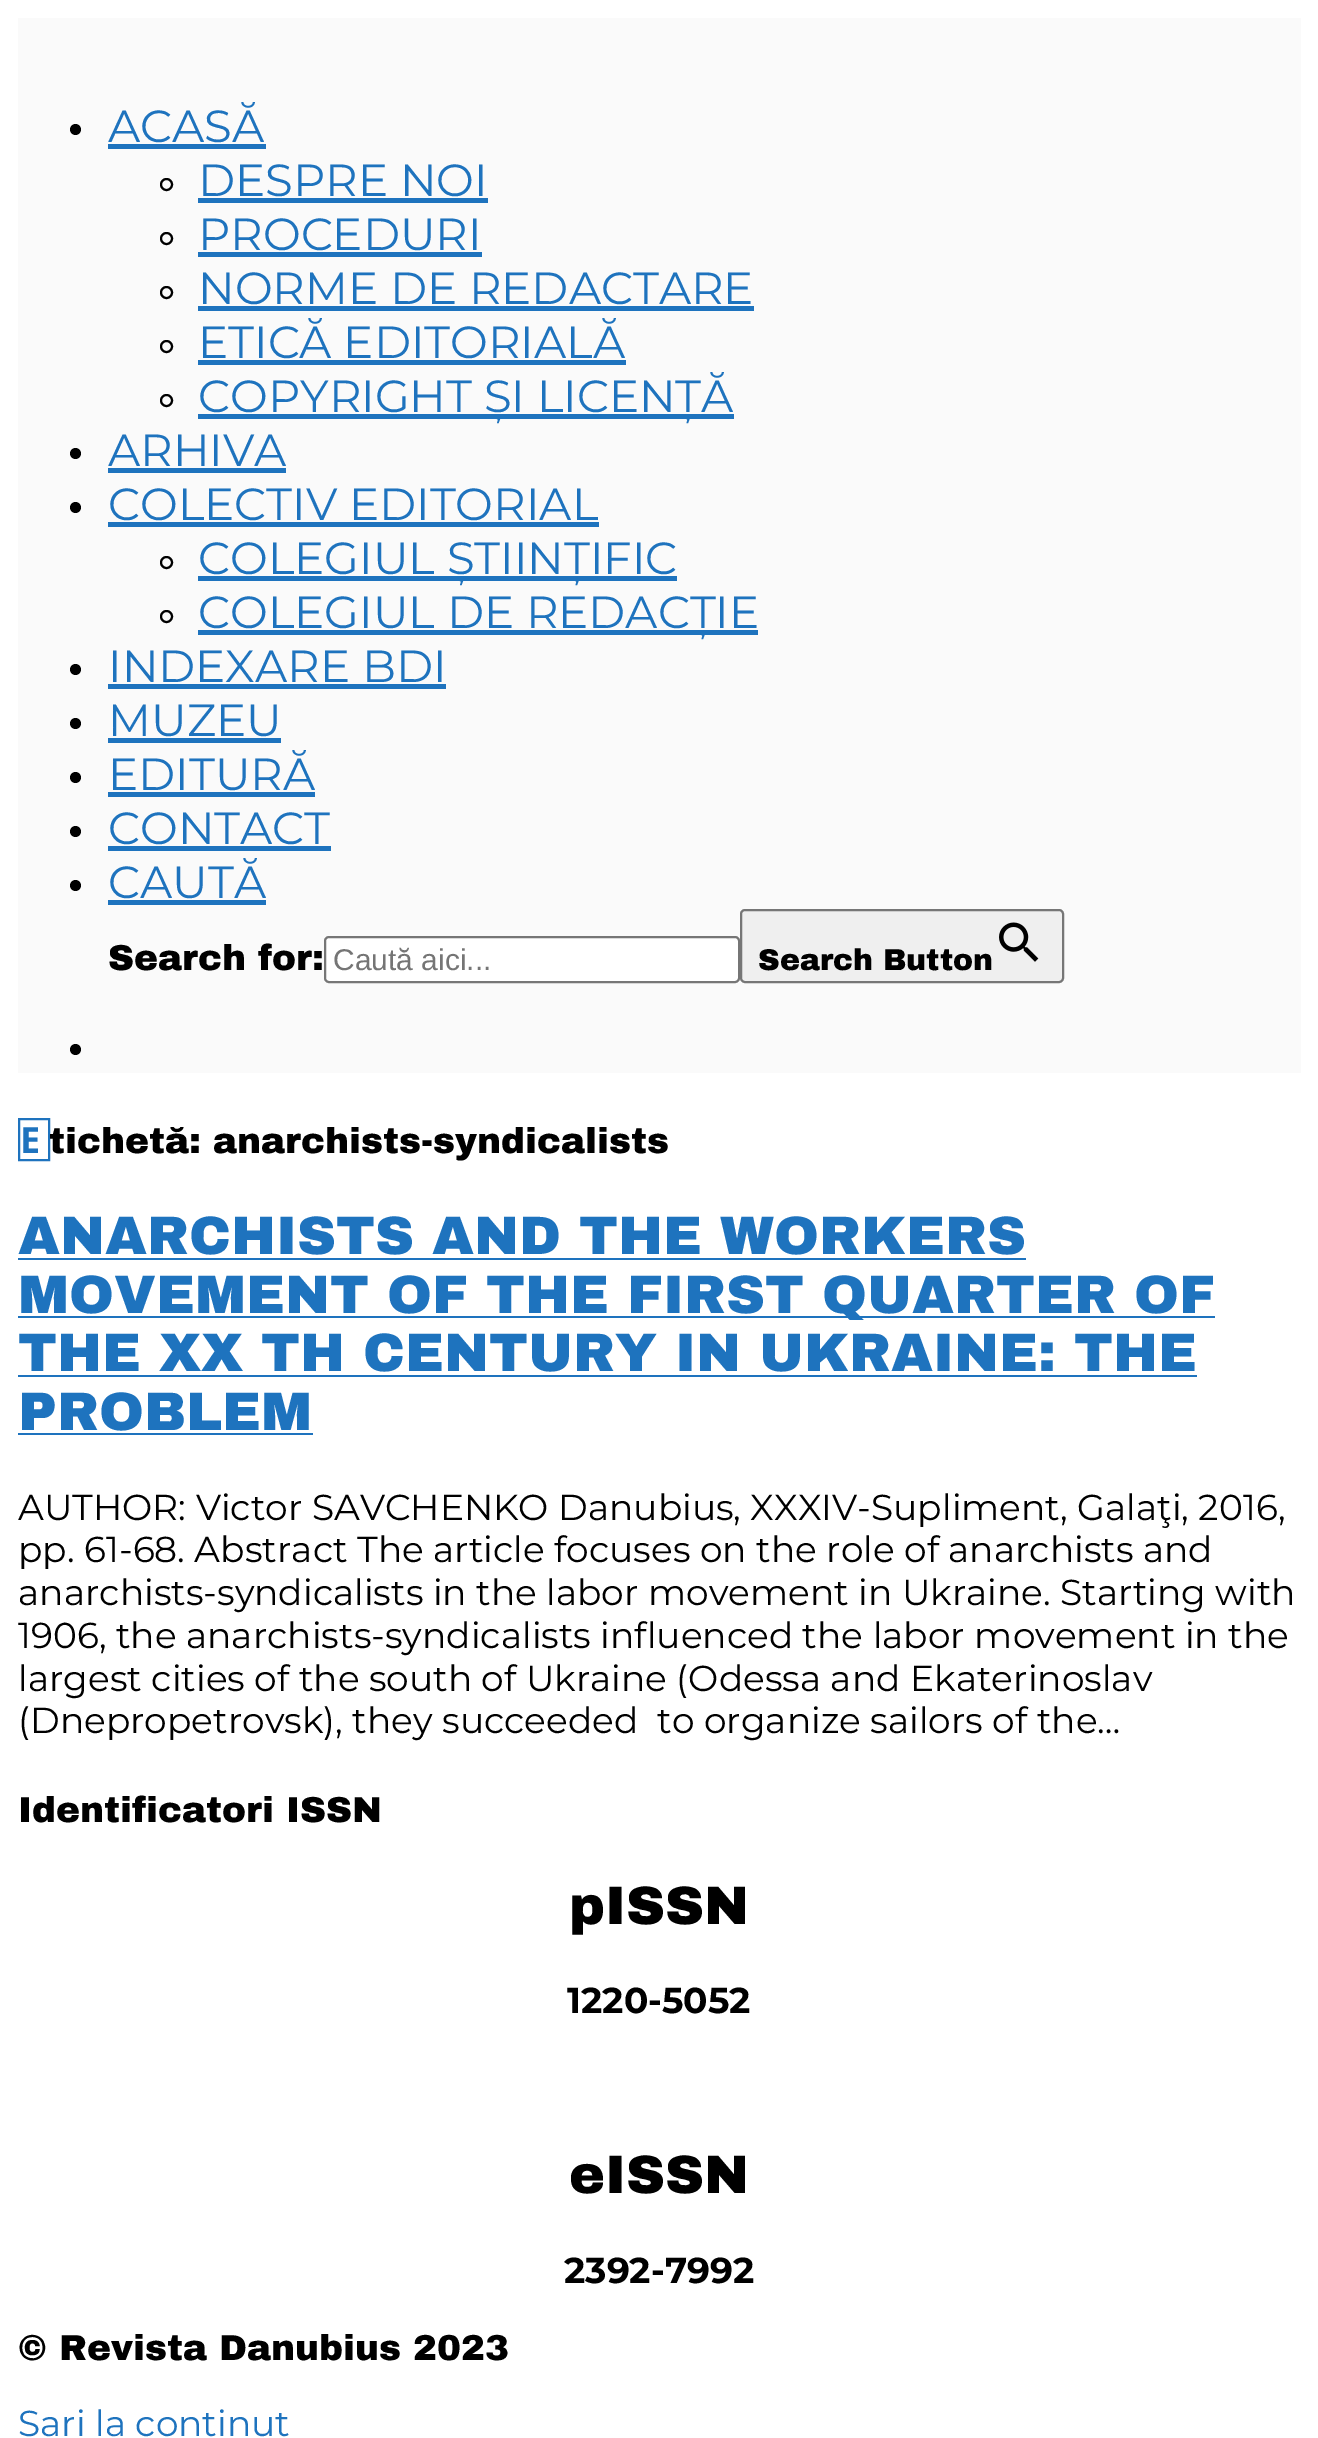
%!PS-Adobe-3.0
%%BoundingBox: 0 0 1318 2438
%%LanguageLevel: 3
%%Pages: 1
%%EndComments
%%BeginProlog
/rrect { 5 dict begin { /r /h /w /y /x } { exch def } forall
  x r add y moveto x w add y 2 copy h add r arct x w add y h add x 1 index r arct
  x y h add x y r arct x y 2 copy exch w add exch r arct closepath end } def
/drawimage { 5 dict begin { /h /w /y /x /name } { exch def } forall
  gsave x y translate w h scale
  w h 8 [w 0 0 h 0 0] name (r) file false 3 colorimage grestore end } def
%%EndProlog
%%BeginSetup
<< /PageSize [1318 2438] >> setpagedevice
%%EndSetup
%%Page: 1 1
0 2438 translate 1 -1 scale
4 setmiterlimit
1 setgray
0 0 1318 2438 rectfill
0.98 setgray
18 18 1283 1055 rectfill
0 setgray
newpath 75.5 129.5 5.5 0 360 arc closepath fill
0.118 0.451 0.745 setrgbcolor
108 144 158 5 rectfill
0 setgray
2 setlinewidth
newpath 166.5 184.5 5.5 0 360 arc closepath stroke
0.118 0.451 0.745 setrgbcolor
198 198 290 5 rectfill
0 setgray
newpath 166.5 238.5 5.5 0 360 arc closepath stroke
0.118 0.451 0.745 setrgbcolor
198 252 284 5 rectfill
0 setgray
newpath 166.5 292.5 5.5 0 360 arc closepath stroke
0.118 0.451 0.745 setrgbcolor
198 306 556 5 rectfill
0 setgray
newpath 166.5 346.5 5.5 0 360 arc closepath stroke
0.118 0.451 0.745 setrgbcolor
198 360 428 5 rectfill
0 setgray
newpath 166.5 400.5 5.5 0 360 arc closepath stroke
0.118 0.451 0.745 setrgbcolor
198 414 536 5 rectfill
0 setgray
newpath 75.5 453.5 5.5 0 360 arc closepath fill
0.118 0.451 0.745 setrgbcolor
108 468 178 5 rectfill
0 setgray
newpath 75.5 507.5 5.5 0 360 arc closepath fill
0.118 0.451 0.745 setrgbcolor
108 522 491 5 rectfill
0 setgray
newpath 166.5 562.5 5.5 0 360 arc closepath stroke
0.118 0.451 0.745 setrgbcolor
198 576 479 5 rectfill
0 setgray
newpath 166.5 616.5 5.5 0 360 arc closepath stroke
0.118 0.451 0.745 setrgbcolor
198 630 560 5 rectfill
0 setgray
newpath 75.5 669.5 5.5 0 360 arc closepath fill
0.118 0.451 0.745 setrgbcolor
108 684 338 5 rectfill
0 setgray
newpath 75.5 723.5 5.5 0 360 arc closepath fill
0.118 0.451 0.745 setrgbcolor
108 738 173 5 rectfill
0 setgray
newpath 75.5 777.5 5.5 0 360 arc closepath fill
0.118 0.451 0.745 setrgbcolor
108 792 207 5 rectfill
0 setgray
newpath 75.5 831.5 5.5 0 360 arc closepath fill
0.118 0.451 0.745 setrgbcolor
108 846 223 5 rectfill
0 setgray
newpath 75.5 885.5 5.5 0 360 arc closepath fill
0.118 0.451 0.745 setrgbcolor
108 900 158 5 rectfill
1 setgray
325 937 414 45 4 rrect gsave fill grestore
0.463 setgray
stroke
0.937 setgray
741 910 322 72 4 rrect gsave fill grestore
0.463 setgray
stroke
(images/1.raw) 999 922 40 40 drawimage
0 setgray
newpath 75.5 1049.5 5.5 0 360 arc closepath fill
0.118 0.451 0.745 setrgbcolor
19 1119 30 41 rectstroke
18 1258 1008 2 rectfill
18 1316 1197 2 rectfill
18 1375 1179 2 rectfill
18 1433 295 2 rectfill
/Montserrat-Regular [45 0 0 -45 0 0] selectfont
108 142 moveto (ACASĂ) show
198 196 moveto (DESPRE NOI) show
198 250 moveto (PROCEDURI) show
198 304 moveto (NORME DE REDACTARE) show
198 358 moveto (ETICĂ EDITORIALĂ) show
198 412 moveto (COPYRIGHT ȘI LICENȚĂ) show
108 466 moveto (ARHIVA) show
108 520 moveto (COLECTIV EDITORIAL) show
198 574 moveto (COLEGIUL ȘTIINȚIFIC) show
198 628 moveto (COLEGIUL DE REDACȚIE) show
108 682 moveto (INDEXARE BDI) show
108 736 moveto (MUZEU) show
108 790 moveto (EDITURĂ) show
108 844 moveto (CONTACT) show
108 898 moveto (CAUTĂ) show
/ArchivoBlack-Black [36 0 0 -36 0 0] selectfont
0 setgray
108 970 moveto (Search for:) show
/LiberationSans-Regular [30 0 0 -30 0 0] selectfont
0.459 setgray
333 970 moveto (Caută aici...) show
/ArchivoBlack-Black [30 0 0 -30 0 0] selectfont
0 setgray
758 970 moveto (Search Button) show
/NotoSans-Bold [36 0 0 -36 0 0] selectfont
0.118 0.451 0.745 setrgbcolor
20 1153 moveto (E) show
/ArchivoBlack-Black [36 0 0 -36 0 0] selectfont
0 setgray
49 1153 moveto (tichetă: anarchists-syndicalists) show
/ArchivoBlack-Black [54 0 0 -54 0 0] selectfont
0.118 0.451 0.745 setrgbcolor
18 1254 moveto (ANARCHISTS AND THE WORKERS) show
18 1313 moveto (MOVEMENT OF THE FIRST QUARTER OF) show
18 1371 moveto (THE XX TH CENTURY IN UKRAINE: THE) show
18 1430 moveto (PROBLEM) show
/Montserrat-Regular [36 0 0 -36 0 0] selectfont
0 setgray
18 1520 moveto (AUTHOR: Victor SAVCHENKO Danubius, XXXIV-Supliment, Galaţi, 2016,) show
18 1562 moveto (pp. 61-68. Abstract The article focuses on the role of anarchists and) show
18 1605 moveto (anarchists-syndicalists in the labor movement in Ukraine. Starting with) show
18 1648 moveto (1906, the anarchists-syndicalists influenced the labor movement in the) show
18 1691 moveto (largest cities of the south of Ukraine \(Odessa and Ekaterinoslav) show
18 1733 moveto (\(Dnepropetrovsk\), they succeeded  to organize sailors of the…) show
/ArchivoBlack-Black [36 0 0 -36 0 0] selectfont
18 1822 moveto (Identificatori ISSN) show
/ArchivoBlack-Black [54 0 0 -54 0 0] selectfont
569 1924 moveto (pISSN) show
/Montserrat-Bold [36 0 0 -36 0 0] selectfont
567 2013 moveto (1220-5052) show
/ArchivoBlack-Black [54 0 0 -54 0 0] selectfont
569 2193 moveto (eISSN) show
/Montserrat-Bold [36 0 0 -36 0 0] selectfont
564 2283 moveto (2392-7992) show
/ArchivoBlack-Black [36 0 0 -36 0 0] selectfont
18 2360 moveto (© Revista Danubius 2023) show
/Montserrat-Regular [36 0 0 -36 0 0] selectfont
0.118 0.451 0.745 setrgbcolor
18 2436 moveto (Sari la conținut) show
showpage
%%EOF
